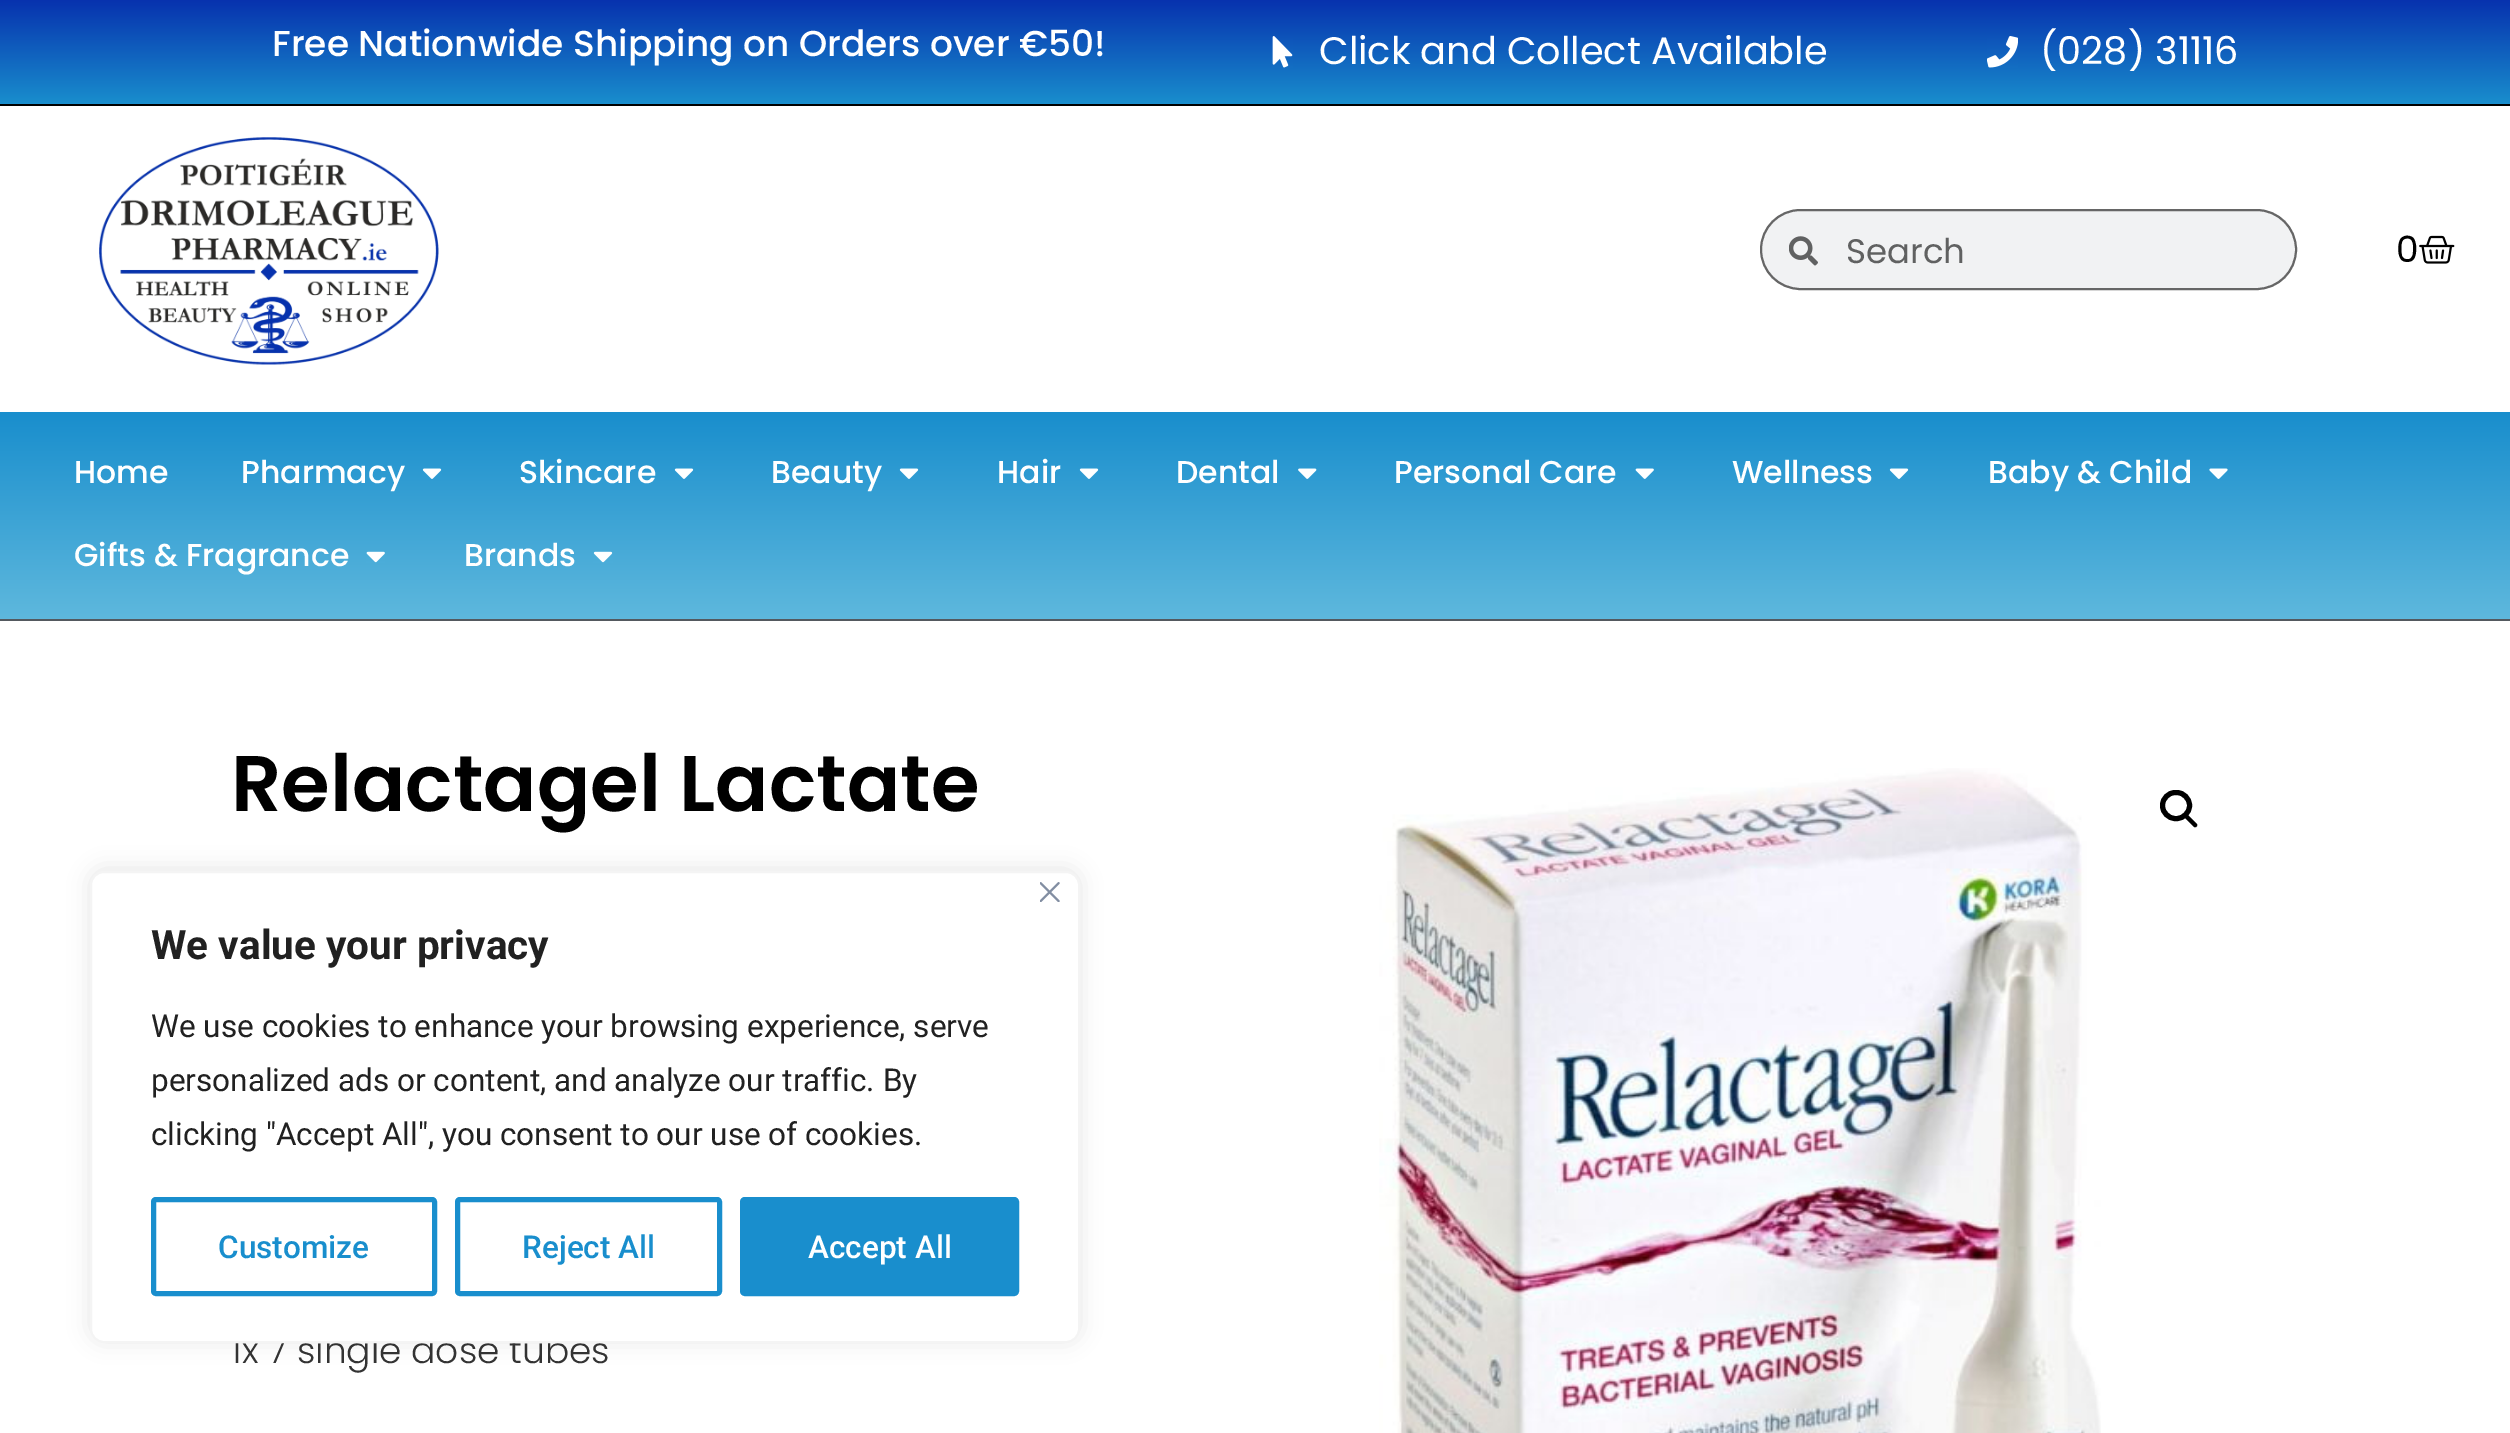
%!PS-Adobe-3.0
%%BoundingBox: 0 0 2510 1433
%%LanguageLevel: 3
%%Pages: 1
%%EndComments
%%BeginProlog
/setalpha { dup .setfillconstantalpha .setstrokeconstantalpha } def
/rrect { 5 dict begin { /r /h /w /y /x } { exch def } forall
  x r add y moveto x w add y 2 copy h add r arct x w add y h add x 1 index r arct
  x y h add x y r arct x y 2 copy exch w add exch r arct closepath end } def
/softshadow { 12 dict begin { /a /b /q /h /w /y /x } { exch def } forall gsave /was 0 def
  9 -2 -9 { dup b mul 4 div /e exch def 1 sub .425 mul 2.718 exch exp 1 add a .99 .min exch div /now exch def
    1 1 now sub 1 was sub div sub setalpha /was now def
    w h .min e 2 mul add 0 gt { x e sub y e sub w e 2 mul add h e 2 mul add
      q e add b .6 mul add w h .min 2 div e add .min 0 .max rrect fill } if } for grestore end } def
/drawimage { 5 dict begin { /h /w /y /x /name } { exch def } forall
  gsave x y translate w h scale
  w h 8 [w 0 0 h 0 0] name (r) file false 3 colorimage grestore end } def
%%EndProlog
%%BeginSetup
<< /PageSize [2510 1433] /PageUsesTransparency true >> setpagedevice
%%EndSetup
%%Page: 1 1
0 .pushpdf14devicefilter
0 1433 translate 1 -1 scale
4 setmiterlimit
1 setgray
0 0 2510 1433 rectfill
gsave newpath 0 0 moveto 2510 0 lineto 2510 104 lineto 0 104 lineto closepath clip newpath
<< /ShadingType 2 /ColorSpace /DeviceRGB /Coords [1256 0 1256 104] /Extend [true true] /Function << /FunctionType 2 /Domain [0 1] /C0 [0.027 0.196 0.682] /C1 [0.098 0.557 0.804] /N 1 >> >> shfill grestore
0 setgray
0 104 2510 2 rectfill
(images/1.raw) 1272 36 21 32 drawimage
(images/2.raw) 1987 36 31 32 drawimage
(images/3.raw) 99 137 340 228 drawimage
0.945 0.949 0.953 setrgbcolor
1761 210 535 79 39.5 rrect gsave fill grestore
0.4 setgray
2 setlinewidth
stroke
(images/4.raw) 1789 236 29 30 drawimage
(images/5.raw) 2419 235 36 29 drawimage
gsave newpath 0 412 moveto 2510 412 lineto 2510 619 lineto 0 619 lineto closepath clip newpath
<< /ShadingType 2 /ColorSpace /DeviceRGB /Coords [1256 412 1256 619] /Extend [true true] /Function << /FunctionType 2 /Domain [0 1] /C0 [0.098 0.557 0.804] /C1 [0.369 0.722 0.867] /N 1 >> >> shfill grestore
0.329 0.349 0.373 setrgbcolor
0 619 2510 2 rectfill
(images/6.raw) 422 468 20 11 drawimage
(images/6.raw) 674 468 20 11 drawimage
(images/6.raw) 899 468 20 11 drawimage
(images/6.raw) 1079 468 20 11 drawimage
(images/7.raw) 1298 468 19 11 drawimage
(images/8.raw) 1635 468 19 11 drawimage
(images/6.raw) 1889 468 20 11 drawimage
(images/9.raw) 2209 468 19 11 drawimage
(images/10.raw) 366 551 19 12 drawimage
(images/11.raw) 593 551 20 12 drawimage
(images/12.raw) 1379 768 722 665 drawimage
0 setgray
5 setlinewidth
2162.5 792.5 27 26 13 rrect stroke
newpath 2184 814 moveto 2185 813 2186.5 813 2187 814 curveto 2196.5 823.5 lineto 2197.5 824.5 2197.5 826 2196.5 826.5 curveto 2196 827.5 2194.5 827.5 2193.5 826.5 curveto 2184 817 lineto 2183 816 2183 815 2184 814 curveto closepath fill
0.675 0.671 0.671 setrgbcolor
90 869 990 472 14 11 0.3 softshadow
/Poppins-Medium [36 0 0 -36 0 0] selectfont
1 setgray
272 56 moveto (Free Nationwide Shipping on Orders over €50!) show
/Poppins-Regular [38.25 0 0 -38.25 0 0] selectfont
1319 64 moveto (Click and Collect Available) show
2040 64 moveto (\(028\) 31116) show
/Poppins-Regular [34 0 0 -34 0 0] selectfont
0.376 0.38 0.38 setrgbcolor
1846 263 moveto (Search) show
/Poppins-Regular [36 0 0 -36 0 0] selectfont
0 setgray
2396 262 moveto (0) show
/Poppins-Medium [31.5 0 0 -31.5 0 0] selectfont
1 setgray
74 483 moveto (Home) show
241 483 moveto (Pharmacy) show
519 483 moveto (Skincare) show
771 483 moveto (Beauty) show
997 483 moveto (Hair) show
1176 483 moveto (Dental) show
1394 483 moveto (Personal Care) show
1732 483 moveto (Wellness) show
1988 483 moveto (Baby & Child) show
74 566 moveto (Gifts & Fragrance) show
464 566 moveto (Brands) show
/Poppins-SemiBold [78.75 0 0 -78.75 0 0] selectfont
0 setgray
231 811 moveto (Relactagel Lactate) show
/Poppins-Light [36 0 0 -36 0 0] selectfont
0.2 setgray
231 1363 moveto (1x 7 single dose tubes) show
1 setgray
91 872 988 470 13 rrect gsave fill grestore
0.957 setgray
2 setlinewidth
stroke
(images/13.raw) 1040 882 20 20 drawimage
/Roboto-Bold [40.5 0 0 -40.5 0 0] selectfont
0.129 setgray
151 959 moveto (We value your privacy) show
/Roboto-Regular [31.5 0 0 -31.5 0 0] selectfont
151 1037 moveto (We use cookies to enhance your browsing experience, serve) show
151 1091 moveto (personalized ads or content, and analyze our traffic. By) show
151 1145 moveto (clicking "Accept All", you consent to our use of cookies.) show
0.098 0.557 0.804 setrgbcolor
5 setlinewidth
153.5 1199.5 281 94 2.5 rrect stroke
/Roboto-Medium [31.5 0 0 -31.5 0 0] selectfont
218 1258 moveto (Customize) show
457.5 1199.5 262 94 2.5 rrect stroke
522 1258 moveto (Reject All) show
742.5 1199.5 274 94 2.5 rrect gsave fill grestore
stroke
1 setgray
808 1258 moveto (Accept All) show
.poppdf14devicefilter showpage
%%EOF
